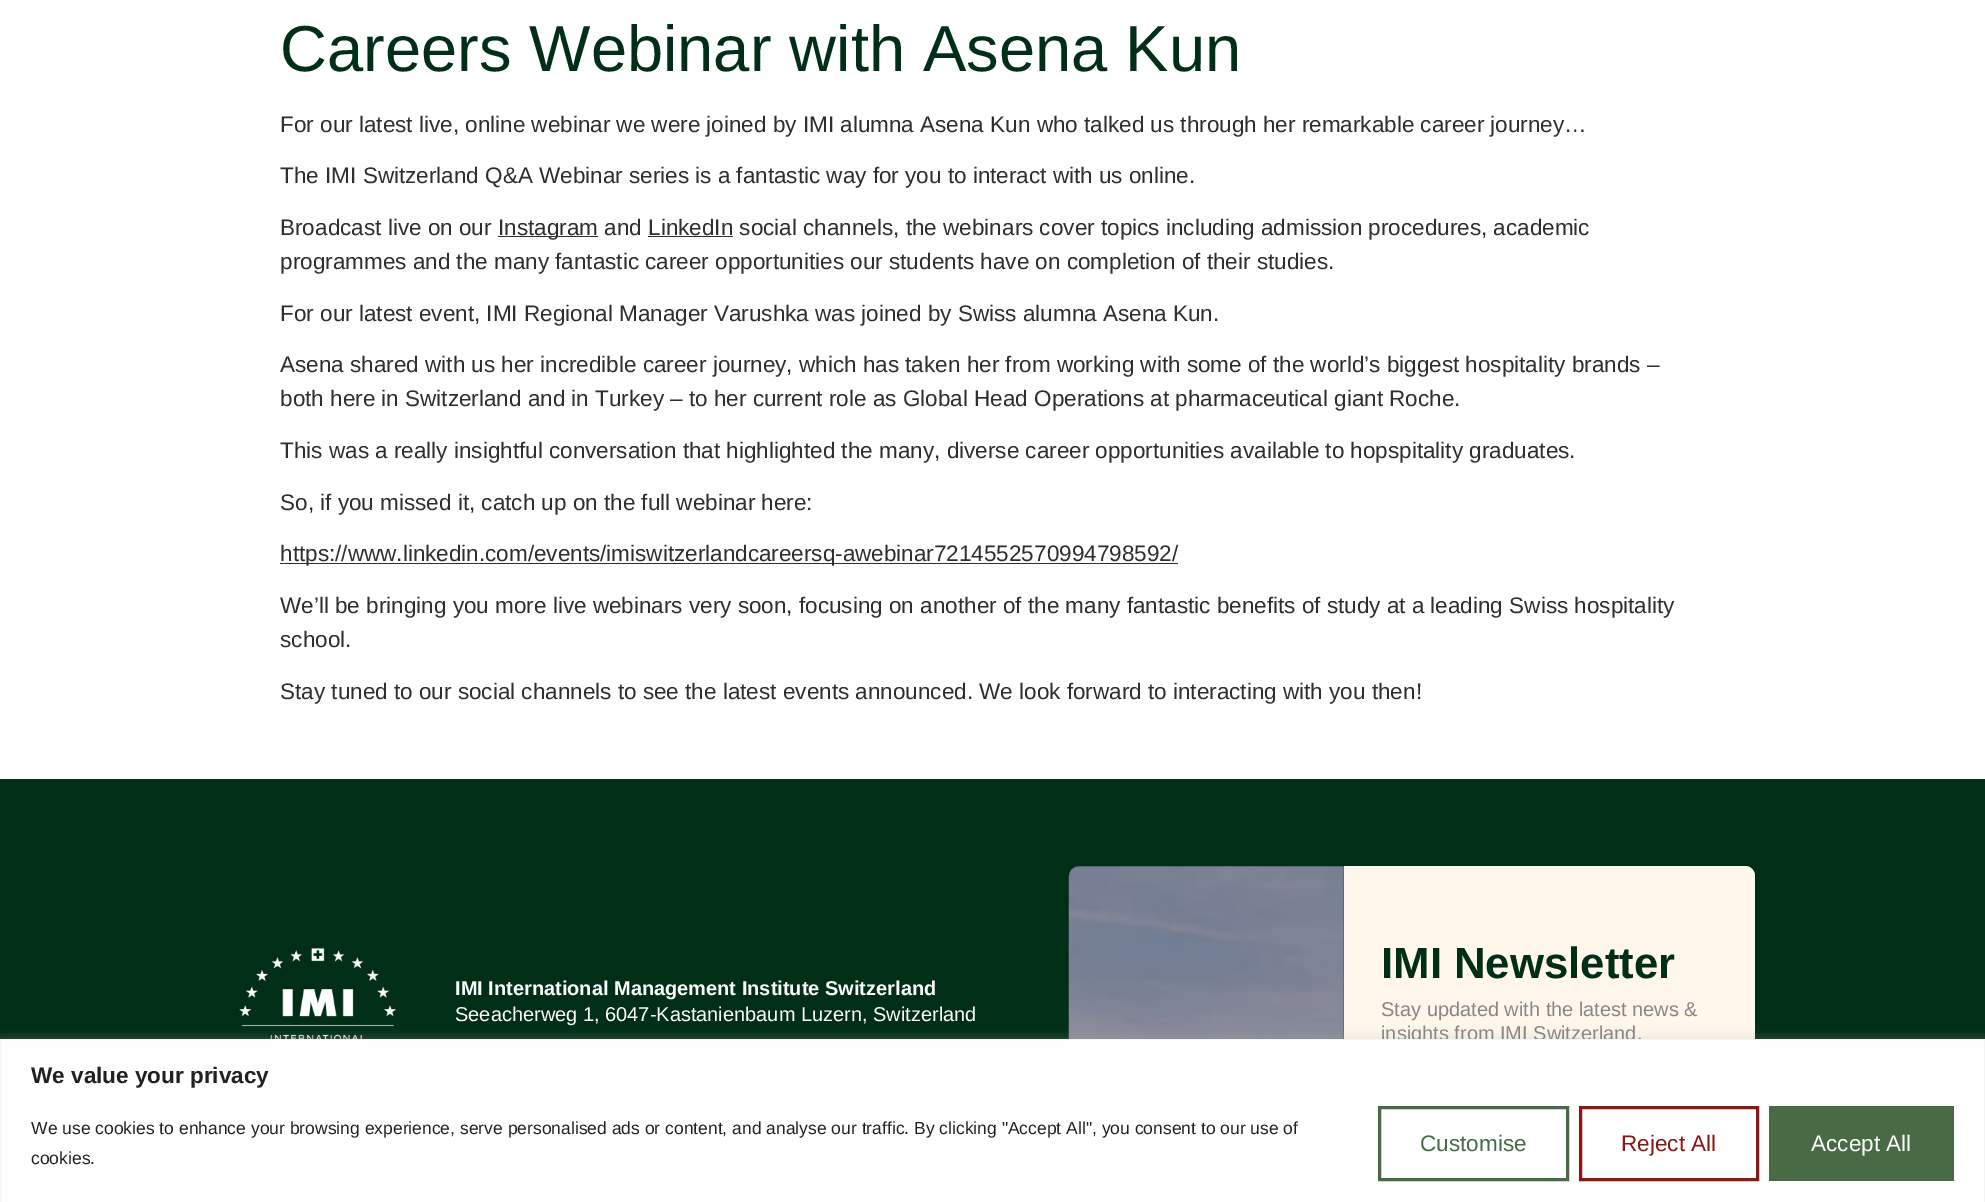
%!PS-Adobe-3.0
%%BoundingBox: 0 0 1985 1202
%%LanguageLevel: 3
%%Pages: 1
%%EndComments
%%BeginProlog
/setalpha { dup .setfillconstantalpha .setstrokeconstantalpha } def
/rrect { 5 dict begin { /r /h /w /y /x } { exch def } forall
  x r add y moveto x w add y 2 copy h add r arct x w add y h add x 1 index r arct
  x y h add x y r arct x y 2 copy exch w add exch r arct closepath end } def
/softshadow { 12 dict begin { /a /b /q /h /w /y /x } { exch def } forall gsave /was 0 def
  9 -2 -9 { dup b mul 4 div /e exch def 1 sub .425 mul 2.718 exch exp 1 add a .99 .min exch div /now exch def
    1 1 now sub 1 was sub div sub setalpha /was now def
    w h .min e 2 mul add 0 gt { x e sub y e sub w e 2 mul add h e 2 mul add
      q e add b .6 mul add w h .min 2 div e add .min 0 .max rrect fill } if } for grestore end } def
/drawimage { 5 dict begin { /h /w /y /x /name } { exch def } forall
  gsave x y translate w h scale
  w h 8 [w 0 0 h 0 0] name (r) file false 3 colorimage grestore end } def
%%EndProlog
%%BeginSetup
<< /PageSize [1985 1202] /PageUsesTransparency true >> setpagedevice
%%EndSetup
%%Page: 1 1
0 .pushpdf14devicefilter
0 1202 translate 1 -1 scale
4 setmiterlimit
1 setgray
0 0 1985 1202 rectfill
0.18 setgray
498 236 100 1 rectfill
648 236 85 1 rectfill
280 563 898 1 rectfill
0 0.18 0.086 setrgbcolor
0 779 1985 260 rectfill
(images/1.raw) 239 948 157 91 drawimage
(images/2.raw) 1068 866 276 173 drawimage
1 0.969 0.922 setrgbcolor
newpath 1344 866 moveto 1745 866 lineto 1750.5 866 1755 870.5 1755 876 curveto 1755 1202 lineto 1755 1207.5 1750.5 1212 1745 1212 curveto 1344 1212 lineto closepath fill
0.675 0.671 0.671 setrgbcolor
0 1038 1985 163 0 6 0.3 softshadow
/LiberationSans-Regular [65 0 0 -65 0 0] selectfont
0 0.18 0.086 setrgbcolor
280 71 moveto (Careers Webinar with Asena Kun) show
/LiberationSans-Regular [22.5 0 0 -22.5 0 0] selectfont
0.18 setgray
280 132 moveto (For our latest live, online webinar we were joined by IMI alumna Asena Kun who talked us through her remarkable career journey…) show
280 183 moveto (The IMI Switzerland Q&A Webinar series is a fantastic way for you to interact with us online.) show
280 235 moveto (Broadcast live on our) show
498 235 moveto (Instagram and LinkedIn social channels, the webinars cover topics including admission procedures, academic) show
280 269 moveto (programmes and the many fantastic career opportunities our students have on completion of their studies.) show
280 321 moveto (For our latest event, IMI Regional Manager Varushka was joined by Swiss alumna Asena Kun.) show
280 372 moveto (Asena shared with us her incredible career journey, which has taken her from working with some of the world’s biggest hospitality brands –) show
280 406 moveto (both here in Switzerland and in Turkey – to her current role as Global Head Operations at pharmaceutical giant Roche.) show
280 458 moveto (This was a really insightful conversation that highlighted the many, diverse career opportunities available to hopspitality graduates.) show
280 510 moveto (So, if you missed it, catch up on the full webinar here:) show
280 561 moveto (https://www.linkedin.com/events/imiswitzerlandcareersq-awebinar7214552570994798592/) show
280 613 moveto (We’ll be bringing you more live webinars very soon, focusing on another of the many fantastic benefits of study at a leading Swiss hospitality) show
280 647 moveto (school.) show
280 699 moveto (Stay tuned to our social channels to see the latest events announced. We look forward to interacting with you then!) show
/LiberationSans-Bold [20 0 0 -20 0 0] selectfont
1 setgray
455 995 moveto (IMI International Management Institute Switzerland) show
/LiberationSans-Regular [20 0 0 -20 0 0] selectfont
455 1021 moveto (Seeacherweg 1, 6047-Kastanienbaum Luzern, Switzerland) show
/LiberationSans-Bold [43.75 0 0 -43.75 0 0] selectfont
0 0.18 0.086 setrgbcolor
1381 978 moveto (IMI Newsletter) show
/LiberationSans-Regular [20 0 0 -20 0 0] selectfont
0.529 setgray
1381 1016 moveto (Stay updated with the latest news &) show
1381 1040 moveto (insights from IMI Switzerland.) show
1 setgray
newpath 0.5 1039.5 moveto 1984.5 1039.5 lineto 1984.5 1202.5 lineto 0.5 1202.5 lineto closepath gsave fill grestore
0.957 setgray
stroke
/LiberationSans-Bold [22.5 0 0 -22.5 0 0] selectfont
0.129 setgray
31 1083 moveto (We value your privacy) show
/LiberationSans-Regular [17.5 0 0 -17.5 0 0] selectfont
31 1134 moveto (We use cookies to enhance your browsing experience, serve personalised ads or content, and analyse our traffic. By clicking "Accept All", you consent to our use of) show
31 1164 moveto (cookies.) show
0.282 0.42 0.275 setrgbcolor
3 setlinewidth
1379.5 1107.5 188 72 rectstroke
/LiberationSans-Regular [22.5 0 0 -22.5 0 0] selectfont
1420 1151 moveto (Customise) show
0.541 0.094 0.071 setrgbcolor
1580.5 1107.5 177 72 rectstroke
1621 1151 moveto (Reject All) show
0.282 0.42 0.275 setrgbcolor
1769 1106 185 75 rectfill
1 setgray
1811 1151 moveto (Accept All) show
.poppdf14devicefilter showpage
%%EOF
